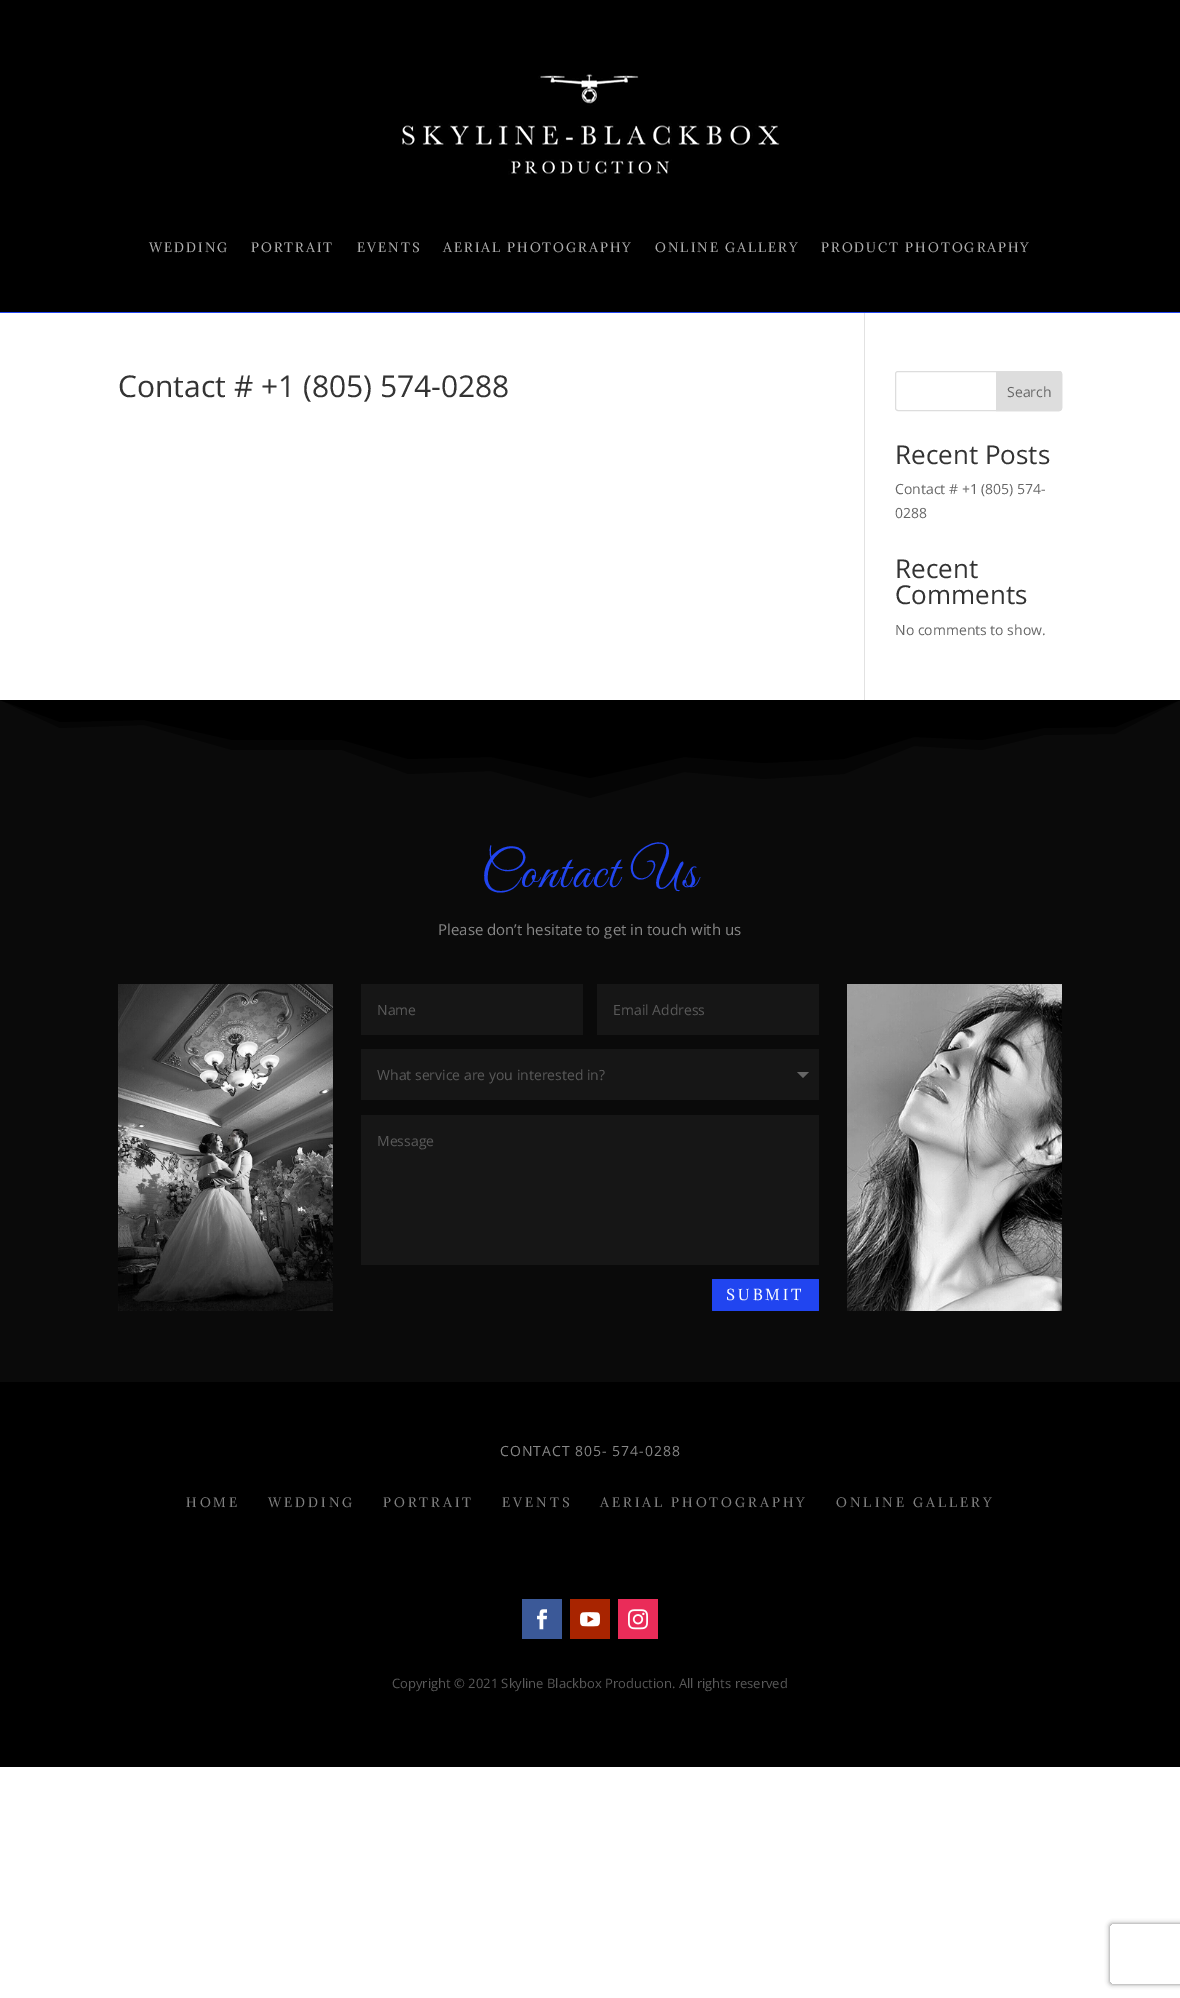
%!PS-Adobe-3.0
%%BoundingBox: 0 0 1180 1998
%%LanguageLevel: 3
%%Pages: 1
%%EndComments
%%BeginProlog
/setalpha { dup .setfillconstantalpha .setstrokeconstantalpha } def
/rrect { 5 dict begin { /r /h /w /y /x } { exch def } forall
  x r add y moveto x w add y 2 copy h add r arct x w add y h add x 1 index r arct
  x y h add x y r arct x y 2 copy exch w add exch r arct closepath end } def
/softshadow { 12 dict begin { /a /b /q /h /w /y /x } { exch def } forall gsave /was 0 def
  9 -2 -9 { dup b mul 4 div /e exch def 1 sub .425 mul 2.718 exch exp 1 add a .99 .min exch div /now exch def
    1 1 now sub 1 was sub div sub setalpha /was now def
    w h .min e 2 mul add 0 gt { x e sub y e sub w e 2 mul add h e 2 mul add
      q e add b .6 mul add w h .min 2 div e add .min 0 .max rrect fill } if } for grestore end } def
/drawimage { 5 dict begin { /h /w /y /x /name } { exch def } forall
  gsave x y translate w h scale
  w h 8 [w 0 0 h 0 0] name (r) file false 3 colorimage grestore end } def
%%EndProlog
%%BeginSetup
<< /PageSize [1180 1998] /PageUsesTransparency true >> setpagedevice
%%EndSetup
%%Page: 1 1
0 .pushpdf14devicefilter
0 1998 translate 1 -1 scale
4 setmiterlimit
1 setgray
0 0 1180 1998 rectfill
0 setgray
0 0 1180 312 rectfill
0.129 0.271 0.941 setrgbcolor
0 312 1180 1 rectfill
(images/1.raw) 402 74 378 101 drawimage
0.886 setgray
864 313 1 387 rectfill
0.867 setgray
895.5 371.5 166 39 2.5 rrect stroke
newpath 996.5 371.5 moveto 1059 371.5 lineto 1060.5 371.5 1061.5 372.5 1061.5 374 curveto 1061.5 408 lineto 1061.5 409.5 1060.5 410.5 1059 410.5 curveto 996.5 410.5 lineto closepath gsave fill grestore
stroke
0.039 setgray
0 700 1180 682 rectfill
0.02 setgray
newpath 144 725 moveto 232 750 lineto 342 750 lineto 408 774 lineto 491 771 lineto 590 798 lineto 684 772 lineto 763 779 lineto 844 774 lineto 914 746 lineto 982 750 lineto 1044 735 lineto 1115 734 lineto 1180 700 lineto 0 700 lineto 60 728 lineto closepath fill
0 setgray
newpath 144 720 moveto 232 740 lineto 342 740 lineto 408 759 lineto 491 757 lineto 590 778 lineto 684 757 lineto 763 763 lineto 844 759 lineto 914 737 lineto 982 740 lineto 1044 728 lineto 1115 727 lineto 1180 700 lineto 0 700 lineto 60 722 lineto closepath fill
(images/2.raw) 118 984 215 327 drawimage
0.086 setgray
361 984 222 51 rectfill
597 984 222 51 rectfill
361 1049 458 51 rectfill
0.4 setgray
newpath 797 1072 moveto 809 1072 lineto 803 1078 lineto closepath fill
0.086 setgray
361 1115 458 150 rectfill
0.129 0.271 0.941 setrgbcolor
712 1279 107 32 1 rrect fill
(images/3.raw) 847 984 215 327 drawimage
0 setgray
0 1382 1180 385 rectfill
0.231 0.349 0.596 setrgbcolor
522 1599 40 40 rectfill
(images/4.raw) 537 1609 10 21 drawimage
0.659 0.141 0 setrgbcolor
570 1599 40 40 rectfill
(images/5.raw) 580 1612 20 15 drawimage
0.918 0.173 0.349 setrgbcolor
618 1599 40 40 rectfill
(images/6.raw) 628 1609 20 21 drawimage
gsave
newpath 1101 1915 moveto 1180 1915 lineto 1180 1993 lineto 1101 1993 lineto closepath 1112 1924 moveto 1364 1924 lineto 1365 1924 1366 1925 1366 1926 curveto 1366 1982 lineto 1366 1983 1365 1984 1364 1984 curveto 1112 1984 lineto 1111 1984 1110 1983 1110 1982 curveto 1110 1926 lineto 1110 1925 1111 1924 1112 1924 curveto closepath eoclip newpath
0.502 setgray
1110 1924 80 60 2 2.5 1 softshadow
grestore
/Adamina-Regular [12 0 0 -12 0 0] selectfont
0.678 setgray
149 252 moveto 2 0 (WEDDING) ashow
251 252 moveto 2 0 (PORTRAIT) ashow
357 252 moveto 2 0 (EVENTS) ashow
443 252 moveto 2 0 (AERIAL PHOTOGRAPHY) ashow
655 252 moveto 2 0 (ONLINE GALLERY) ashow
821 252 moveto 2 0 (PRODUCT PHOTOGRAPHY) ashow
/OpenSans-Regular [30 0 0 -30 0 0] selectfont
0.2 setgray
118 397 moveto (Contact # +1 \(805\) 574-0288) show
/OpenSans-Regular [14 0 0 -14 0 0] selectfont
0.4 setgray
1007 397 moveto (Search) show
/OpenSans-Regular [26 0 0 -26 0 0] selectfont
0.2 setgray
895 464 moveto (Recent Posts) show
/OpenSans-Regular [14 0 0 -14 0 0] selectfont
0.4 setgray
895 494 moveto (Contact # +1 \(805\) 574-) show
895 518 moveto (0288) show
/OpenSans-Regular [26 0 0 -26 0 0] selectfont
0.2 setgray
895 578 moveto (Recent) show
895 604 moveto (Comments) show
/OpenSans-Regular [14 0 0 -14 0 0] selectfont
0.4 setgray
895 635 moveto (No comments to show.) show
/GreatVibes-Regular [52 0 0 -52 0 0] selectfont
0.129 0.271 0.941 setrgbcolor
481 887 moveto 2 0 (Contact Us) ashow
/OpenSans-Regular [15 0 0 -15 0 0] selectfont
0.529 setgray
438 935 moveto (Please don’t hesitate to get in touch with us) show
/OpenSans-Regular [14 0 0 -14 0 0] selectfont
0.349 setgray
377 1015 moveto (Name) show
613 1015 moveto (Email Address) show
377 1080 moveto (What service are you interested in?) show
377 1146 moveto (Message) show
/Adamina-Regular [14 0 0 -14 0 0] selectfont
1 setgray
726 1300 moveto 3 0 (SUBMIT) ashow
/OpenSans-Regular [14 0 0 -14 0 0] selectfont
0.529 setgray
500 1456 moveto 1 0 (CONTACT 805- 574-0288) ashow
/Adamina-Regular [12 0 0 -12 0 0] selectfont
0.498 setgray
186 1507 moveto 3 0 (HOME) ashow
268 1507 moveto 3 0 (WEDDING) ashow
383 1507 moveto 3 0 (PORTRAIT) ashow
502 1507 moveto 3 0 (EVENTS) ashow
600 1507 moveto 3 0 (AERIAL PHOTOGRAPHY) ashow
836 1507 moveto 3 0 (ONLINE GALLERY) ashow
/OpenSans-Regular [13 0 0 -13 0 0] selectfont
0.349 setgray
392 1688 moveto (Copyright © 2021 Skyline Blackbox Production. All rights reserved) show
.poppdf14devicefilter showpage
%%EOF
